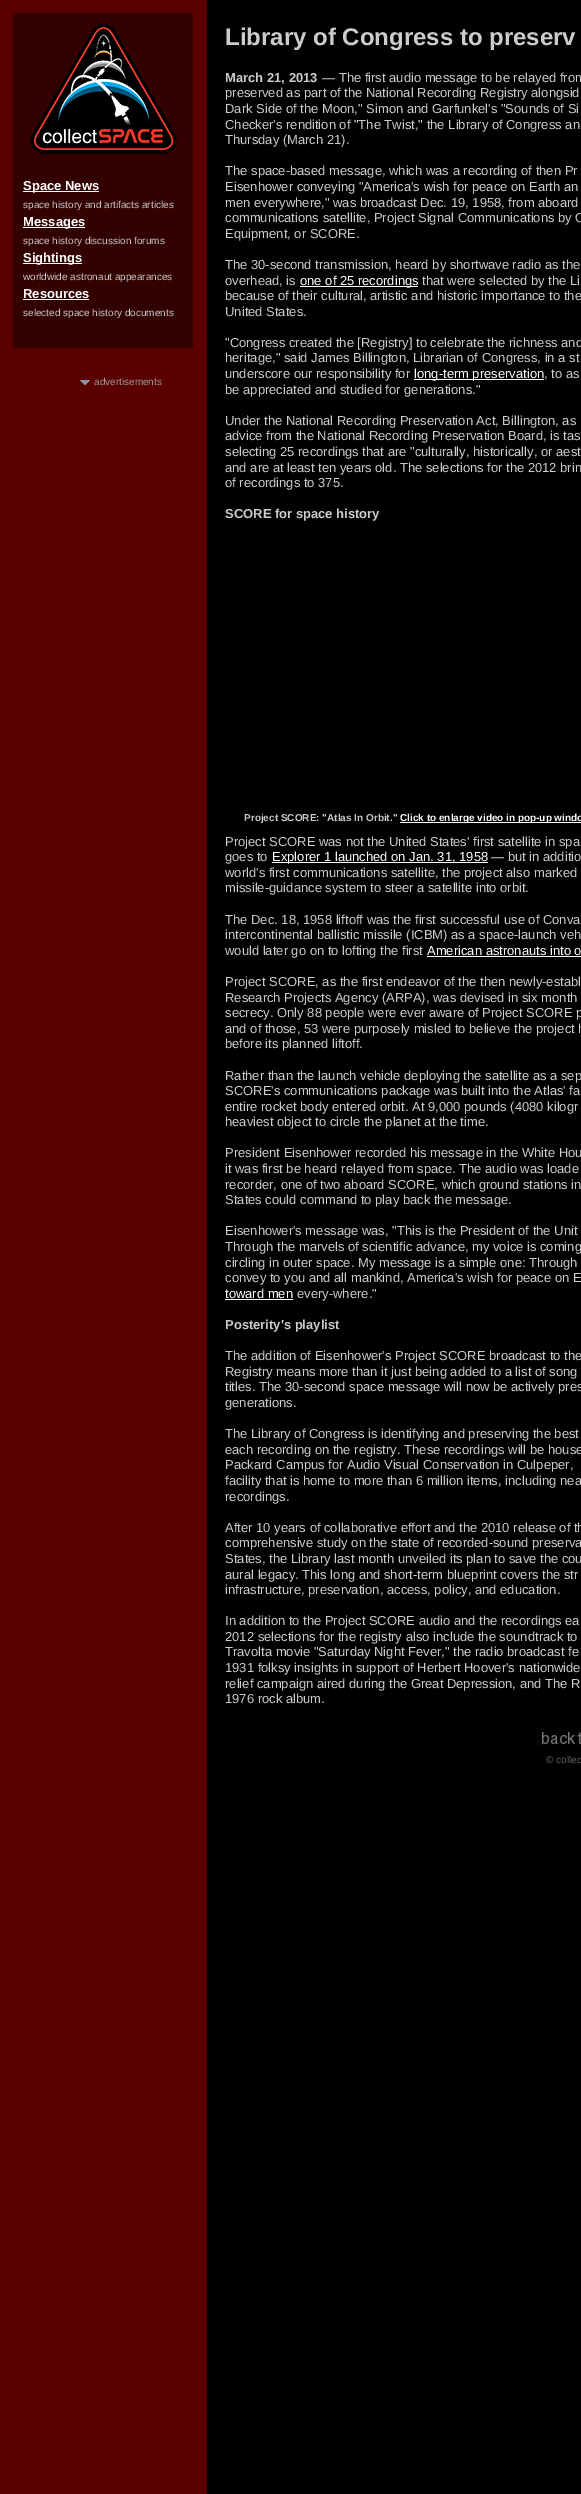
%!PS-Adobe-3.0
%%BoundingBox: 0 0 581 2494
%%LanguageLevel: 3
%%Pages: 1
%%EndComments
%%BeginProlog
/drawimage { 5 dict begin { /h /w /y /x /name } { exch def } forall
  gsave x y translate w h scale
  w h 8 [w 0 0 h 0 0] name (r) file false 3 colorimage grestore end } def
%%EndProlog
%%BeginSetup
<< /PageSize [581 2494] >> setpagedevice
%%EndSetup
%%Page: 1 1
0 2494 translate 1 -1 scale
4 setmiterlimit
0 setgray
0 0 581 2494 rectfill
0.357 0 0 setrgbcolor
0 0 207 2494 rectfill
0.2 0 0 setrgbcolor
13 13 180 335 rectfill
(images/1.raw) 30 23 147 131 drawimage
1 setgray
23 191 76 1 rectfill
23 227 62 1 rectfill
23 263 59 1 rectfill
23 299 66 1 rectfill
(images/2.raw) 80 380 10 5 drawimage
300 286 118 1 rectfill
414 379 130 1 rectfill
400 822 181 1 rectfill
272 862 216 1 rectfill
427 956 154 1 rectfill
225 1299 68 1 rectfill
(images/3.raw) 536 1730 45 15 drawimage
/LiberationSans-Bold [13 0 0 -13 0 0] selectfont
23 190 moveto (Space News) show
/LiberationSans-Regular [10 0 0 -10 0 0] selectfont
0.8 setgray
23 208 moveto (space history and artifacts articles) show
/LiberationSans-Bold [13 0 0 -13 0 0] selectfont
1 setgray
23 226 moveto (Messages) show
/LiberationSans-Regular [10 0 0 -10 0 0] selectfont
0.8 setgray
23 244 moveto (space history discussion forums) show
/LiberationSans-Bold [13 0 0 -13 0 0] selectfont
1 setgray
23 262 moveto (Sightings) show
/LiberationSans-Regular [10 0 0 -10 0 0] selectfont
0.8 setgray
23 280 moveto (worldwide astronaut appearances) show
/LiberationSans-Bold [13 0 0 -13 0 0] selectfont
1 setgray
23 298 moveto (Resources) show
/LiberationSans-Regular [10 0 0 -10 0 0] selectfont
0.8 setgray
23 316 moveto (selected space history documents) show
0.6 setgray
94 385 moveto (advertisements) show
/LiberationSans-Bold [24 0 0 -24 0 0] selectfont
0.8 setgray
225 45 moveto (Library of Congress to preserv) show
/LiberationSans-Bold [13 0 0 -13 0 0] selectfont
225 82 moveto (March 21, 2013) show
/LiberationSans-Regular [13 0 0 -13 0 0] selectfont
322 82 moveto (— The first audio message to be relayed from) show
225 97 moveto (preserved as part of the National Recording Registry alongsid) show
225 113 moveto (Dark Side of the Moon," Simon and Garfunkel's "Sounds of Si) show
225 129 moveto (Checker's rendition of "The Twist," the Library of Congress an) show
225 144 moveto (Thursday \(March 21\).) show
225 175 moveto (The space-based message, which was a recording of then Pr) show
225 191 moveto (Eisenhower conveying "America's wish for peace on Earth an) show
225 207 moveto (men everywhere," was broadcast Dec. 19, 1958, from aboard) show
225 222 moveto (communications satellite, Project Signal Communications by O) show
225 238 moveto (Equipment, or SCORE.) show
225 269 moveto (The 30-second transmission, heard by shortwave radio as the) show
225 285 moveto (overhead, is) show
1 setgray
300 285 moveto (one of 25 recordings) show
0.8 setgray
422 285 moveto (that were selected by the Li) show
225 300 moveto (because of their cultural, artistic and historic importance to the) show
225 316 moveto (United States.) show
225 347 moveto ("Congress created the [Registry] to celebrate the richness and) show
225 362 moveto (heritage," said James Billington, Librarian of Congress, in a st) show
225 378 moveto (underscore our responsibility for) show
1 setgray
414 378 moveto (long-term preservation) show
0.8 setgray
544 378 moveto (, to as) show
225 394 moveto (be appreciated and studied for generations.") show
225 425 moveto (Under the National Recording Preservation Act, Billington, as) show
225 440 moveto (advice from the National Recording Preservation Board, is tas) show
225 456 moveto (selecting 25 recordings that are "culturally, historically, or aest) show
225 472 moveto (and are at least ten years old. The selections for the 2012 brin) show
225 487 moveto (of recordings to 375.) show
/LiberationSans-Bold [13 0 0 -13 0 0] selectfont
225 518 moveto (SCORE for space history) show
/LiberationSans-Bold [10 0 0 -10 0 0] selectfont
244 821 moveto (Project SCORE: "Atlas In Orbit.") show
1 setgray
400 821 moveto (Click to enlarge video in pop-up windo) show
/LiberationSans-Regular [13 0 0 -13 0 0] selectfont
0.8 setgray
225 846 moveto (Project SCORE was not the United States' first satellite in spa) show
225 861 moveto (goes to) show
1 setgray
272 861 moveto (Explorer 1 launched on Jan. 31, 1958) show
0.8 setgray
491 861 moveto (— but in additio) show
225 877 moveto (world's first communications satellite, the project also marked) show
225 892 moveto (missile-guidance system to steer a satellite into orbit.) show
225 924 moveto (The Dec. 18, 1958 liftoff was the first successful use of Conva) show
225 939 moveto (intercontinental ballistic missile \(ICBM\) as a space-launch veh) show
225 955 moveto (would later go on to lofting the first) show
1 setgray
427 955 moveto (American astronauts into o) show
0.8 setgray
225 986 moveto (Project SCORE, as the first endeavor of the then newly-establ) show
225 1002 moveto (Research Projects Agency \(ARPA\), was devised in six month) show
225 1017 moveto (secrecy. Only 88 people were ever aware of Project SCORE p) show
225 1033 moveto (and of those, 53 were purposely misled to believe the project h) show
225 1048 moveto (before its planned liftoff.) show
225 1080 moveto (Rather than the launch vehicle deploying the satellite as a sep) show
225 1095 moveto (SCORE's communications package was built into the Atlas' fa) show
225 1111 moveto (entire rocket body entered orbit. At 9,000 pounds \(4080 kilogr) show
225 1126 moveto (heaviest object to circle the planet at the time.) show
225 1157 moveto (President Eisenhower recorded his message in the White Hou) show
225 1173 moveto (it was first be heard relayed from space. The audio was loade) show
225 1189 moveto (recorder, one of two aboard SCORE, which ground stations in) show
225 1204 moveto (States could command to play back the message.) show
225 1235 moveto (Eisenhower's message was, "This is the President of the Unit) show
225 1251 moveto (Through the marvels of scientific advance, my voice is coming) show
225 1267 moveto (circling in outer space. My message is a simple one: Through) show
225 1282 moveto (convey to you and all mankind, America's wish for peace on E) show
1 setgray
225 1298 moveto (toward men) show
0.8 setgray
297 1298 moveto (every-where.") show
/LiberationSans-Bold [13 0 0 -13 0 0] selectfont
225 1329 moveto (Posterity's playlist) show
/LiberationSans-Regular [13 0 0 -13 0 0] selectfont
225 1360 moveto (The addition of Eisenhower's Project SCORE broadcast to the) show
225 1376 moveto (Registry means more than it just being added to a list of song) show
225 1391 moveto (titles. The 30-second space message will now be actively pres) show
225 1407 moveto (generations.) show
225 1438 moveto (The Library of Congress is identifying and preserving the best) show
225 1454 moveto (each recording on the registry. These recordings will be house) show
225 1469 moveto (Packard Campus for Audio Visual Conservation in Culpeper,) show
225 1485 moveto (facility that is home to more than 6 million items, including nea) show
225 1501 moveto (recordings.) show
225 1532 moveto (After 10 years of collaborative effort and the 2010 release of th) show
225 1547 moveto (comprehensive study on the state of recorded-sound preserva) show
225 1563 moveto (States, the Library last month unveiled its plan to save the cou) show
225 1579 moveto (aural legacy. This long and short-term blueprint covers the str) show
225 1594 moveto (infrastructure, preservation, access, policy, and education.) show
225 1625 moveto (In addition to the Project SCORE audio and the recordings ea) show
225 1641 moveto (2012 selections for the registry also include the soundtrack to) show
225 1656 moveto (Travolta movie "Saturday Night Fever," the radio broadcast fe) show
225 1672 moveto (1931 folksy insights in support of Herbert Hoover's nationwide) show
225 1688 moveto (relief campaign aired during the Great Depression, and The R) show
225 1703 moveto (1976 rock album.) show
/LiberationSans-Regular [10 0 0 -10 0 0] selectfont
0.4 setgray
546 1763 moveto (© collec) show
showpage
%%EOF
